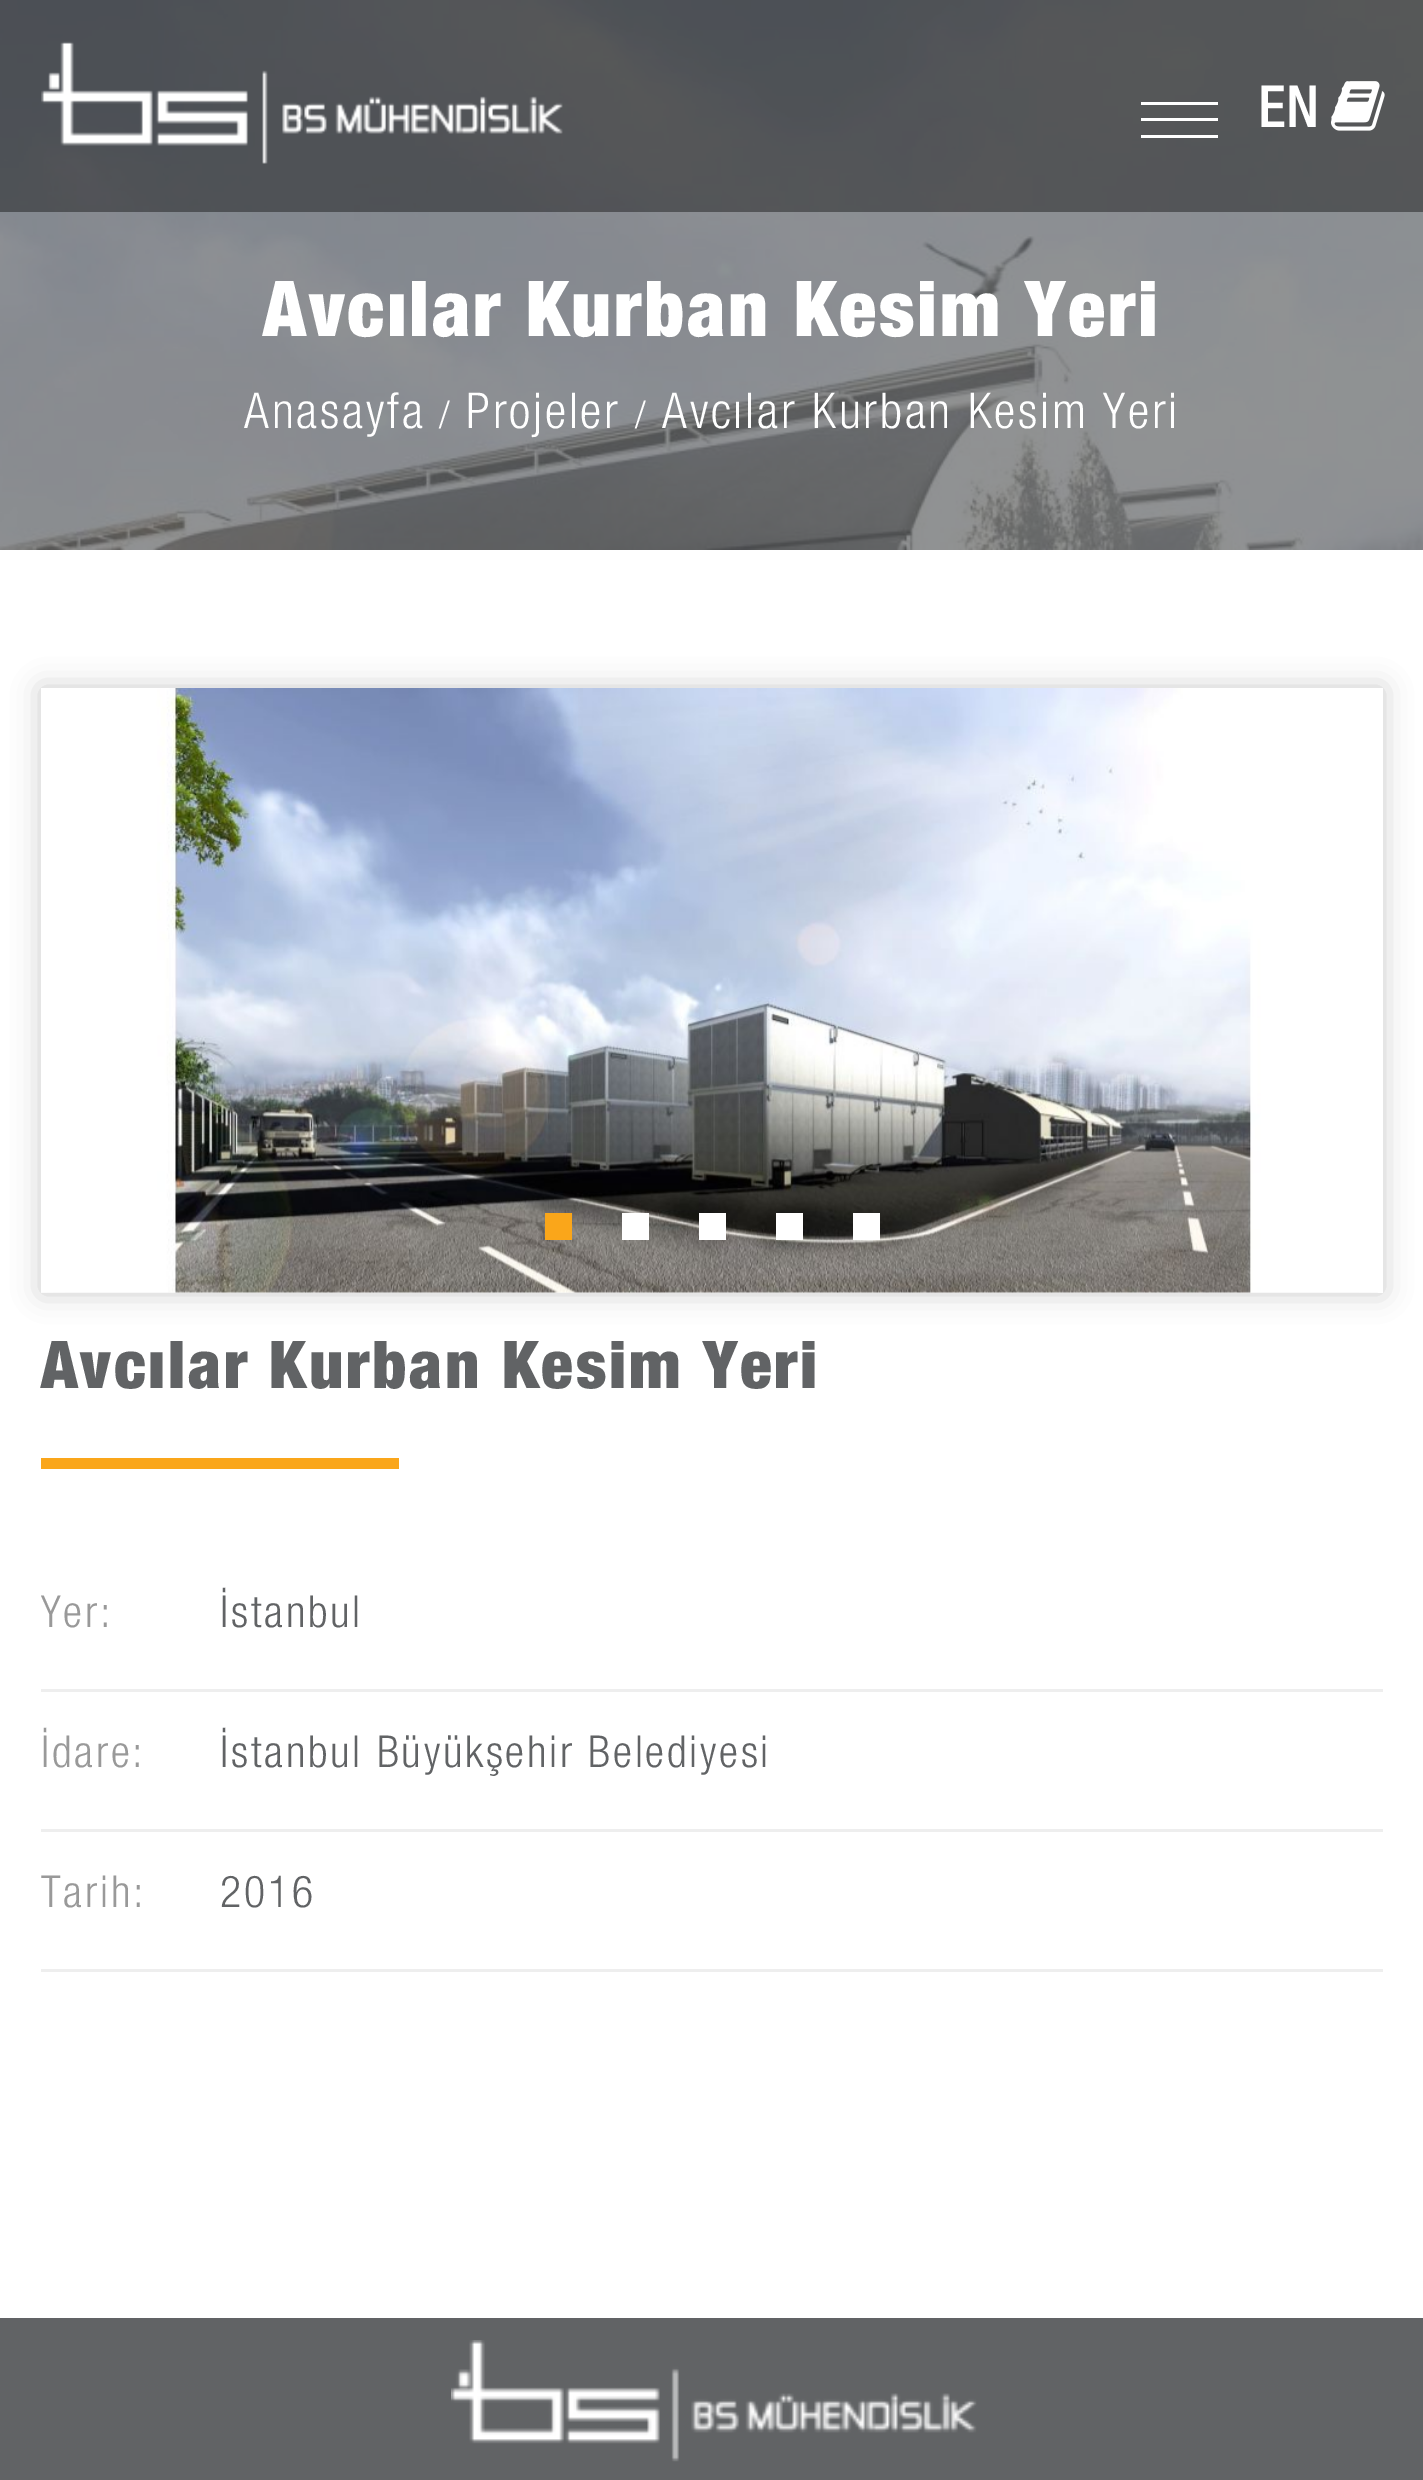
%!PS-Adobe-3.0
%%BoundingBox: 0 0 1423 2480
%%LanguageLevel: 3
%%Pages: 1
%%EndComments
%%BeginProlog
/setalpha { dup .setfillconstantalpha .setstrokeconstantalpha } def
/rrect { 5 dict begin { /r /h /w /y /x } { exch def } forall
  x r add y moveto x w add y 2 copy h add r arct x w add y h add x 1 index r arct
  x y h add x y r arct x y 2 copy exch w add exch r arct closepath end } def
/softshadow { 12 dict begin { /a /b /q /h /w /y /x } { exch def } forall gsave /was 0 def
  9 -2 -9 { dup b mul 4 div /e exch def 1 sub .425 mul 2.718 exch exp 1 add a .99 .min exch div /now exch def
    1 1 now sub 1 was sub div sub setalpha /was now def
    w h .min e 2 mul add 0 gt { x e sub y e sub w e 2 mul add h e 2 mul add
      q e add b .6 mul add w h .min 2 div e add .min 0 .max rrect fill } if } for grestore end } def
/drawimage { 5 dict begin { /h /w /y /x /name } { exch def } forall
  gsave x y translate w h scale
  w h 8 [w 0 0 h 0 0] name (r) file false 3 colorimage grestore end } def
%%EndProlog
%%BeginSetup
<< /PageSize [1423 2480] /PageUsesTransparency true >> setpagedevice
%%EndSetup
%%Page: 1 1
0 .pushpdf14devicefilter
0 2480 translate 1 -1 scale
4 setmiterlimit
1 setgray
0 0 1423 2480 rectfill
(images/3.raw) 0 0 1423 550 drawimage
0.4 setalpha
0 setgray
0 0 1423 212 rectfill
1 setalpha
(images/1.raw) 41 41 522 123 drawimage
1 setgray
1141 102 77 3 rectfill
1141 118 77 3 rectfill
1141 135 77 3 rectfill
(images/2.raw) 1331 81 54 50 drawimage
gsave
newpath 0 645 moveto 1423 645 lineto 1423 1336 lineto 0 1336 lineto closepath 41 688 moveto 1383 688 lineto 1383 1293 lineto 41 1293 lineto closepath eoclip newpath
0 setgray
41 688 1342 605 0 14 0.2 softshadow
grestore
(images/4.raw) 41 688 1337 605 drawimage
0.98 0.651 0.102 setrgbcolor
545 1213 27 27 rectfill
1 setgray
622 1213 27 27 rectfill
699 1213 27 27 rectfill
776 1213 27 27 rectfill
853 1213 27 27 rectfill
0.98 0.651 0.102 setrgbcolor
41 1458 358 11 rectfill
0.933 setgray
41 1689 1342 3 rectfill
41 1829 1342 3 rectfill
41 1969 1342 3 rectfill
0.38 0.388 0.396 setrgbcolor
0 2318 1423 162 rectfill
(images/5.raw) 451 2340 526 122 drawimage
/HelveticaNeue-Medium [58 0 0 -58 0 0] selectfont
1 setgray
1258 127 moveto (EN) show
/HelveticaNeue-Black [77 0 0 -77 0 0] selectfont
263 336 moveto 2.75 0 (Avcılar Kurban Kesim Yeri) ashow
/HelveticaNeue-Light [49.5 0 0 -49.5 0 0] selectfont
244 428 moveto 2.75 0 (Anasayfa) ashow
/HelveticaNeue-Light [38 0 0 -38 0 0] selectfont
439 428 moveto 2.75 0 (/) ashow
/HelveticaNeue-Light [49.5 0 0 -49.5 0 0] selectfont
466 428 moveto 2.75 0 (Projeler) ashow
/HelveticaNeue-Light [38 0 0 -38 0 0] selectfont
635 428 moveto 2.75 0 (/) ashow
/HelveticaNeue-Light [49.5 0 0 -49.5 0 0] selectfont
662 428 moveto 2.75 0 (Avcılar Kurban Kesim Yeri) ashow
/HelveticaNeue-Black [66 0 0 -66 0 0] selectfont
0.38 0.388 0.396 setrgbcolor
41 1388 moveto 2.75 0 (Avcılar Kurban Kesim Yeri) ashow
/HelveticaNeue-Light [44 0 0 -44 0 0] selectfont
0.6 setgray
41 1627 moveto 2.75 0 (Yer:) ashow
0.38 0.388 0.396 setrgbcolor
220 1627 moveto 2.75 0 (İstanbul) ashow
0.6 setgray
41 1767 moveto 2.75 0 (İdare:) ashow
0.38 0.388 0.396 setrgbcolor
220 1767 moveto 2.75 0 (İstanbul Büyükşehir Belediyesi) ashow
0.6 setgray
41 1907 moveto 2.75 0 (Tarih:) ashow
0.38 0.388 0.396 setrgbcolor
220 1907 moveto 2.75 0 (2016) ashow
.poppdf14devicefilter showpage
%%EOF
